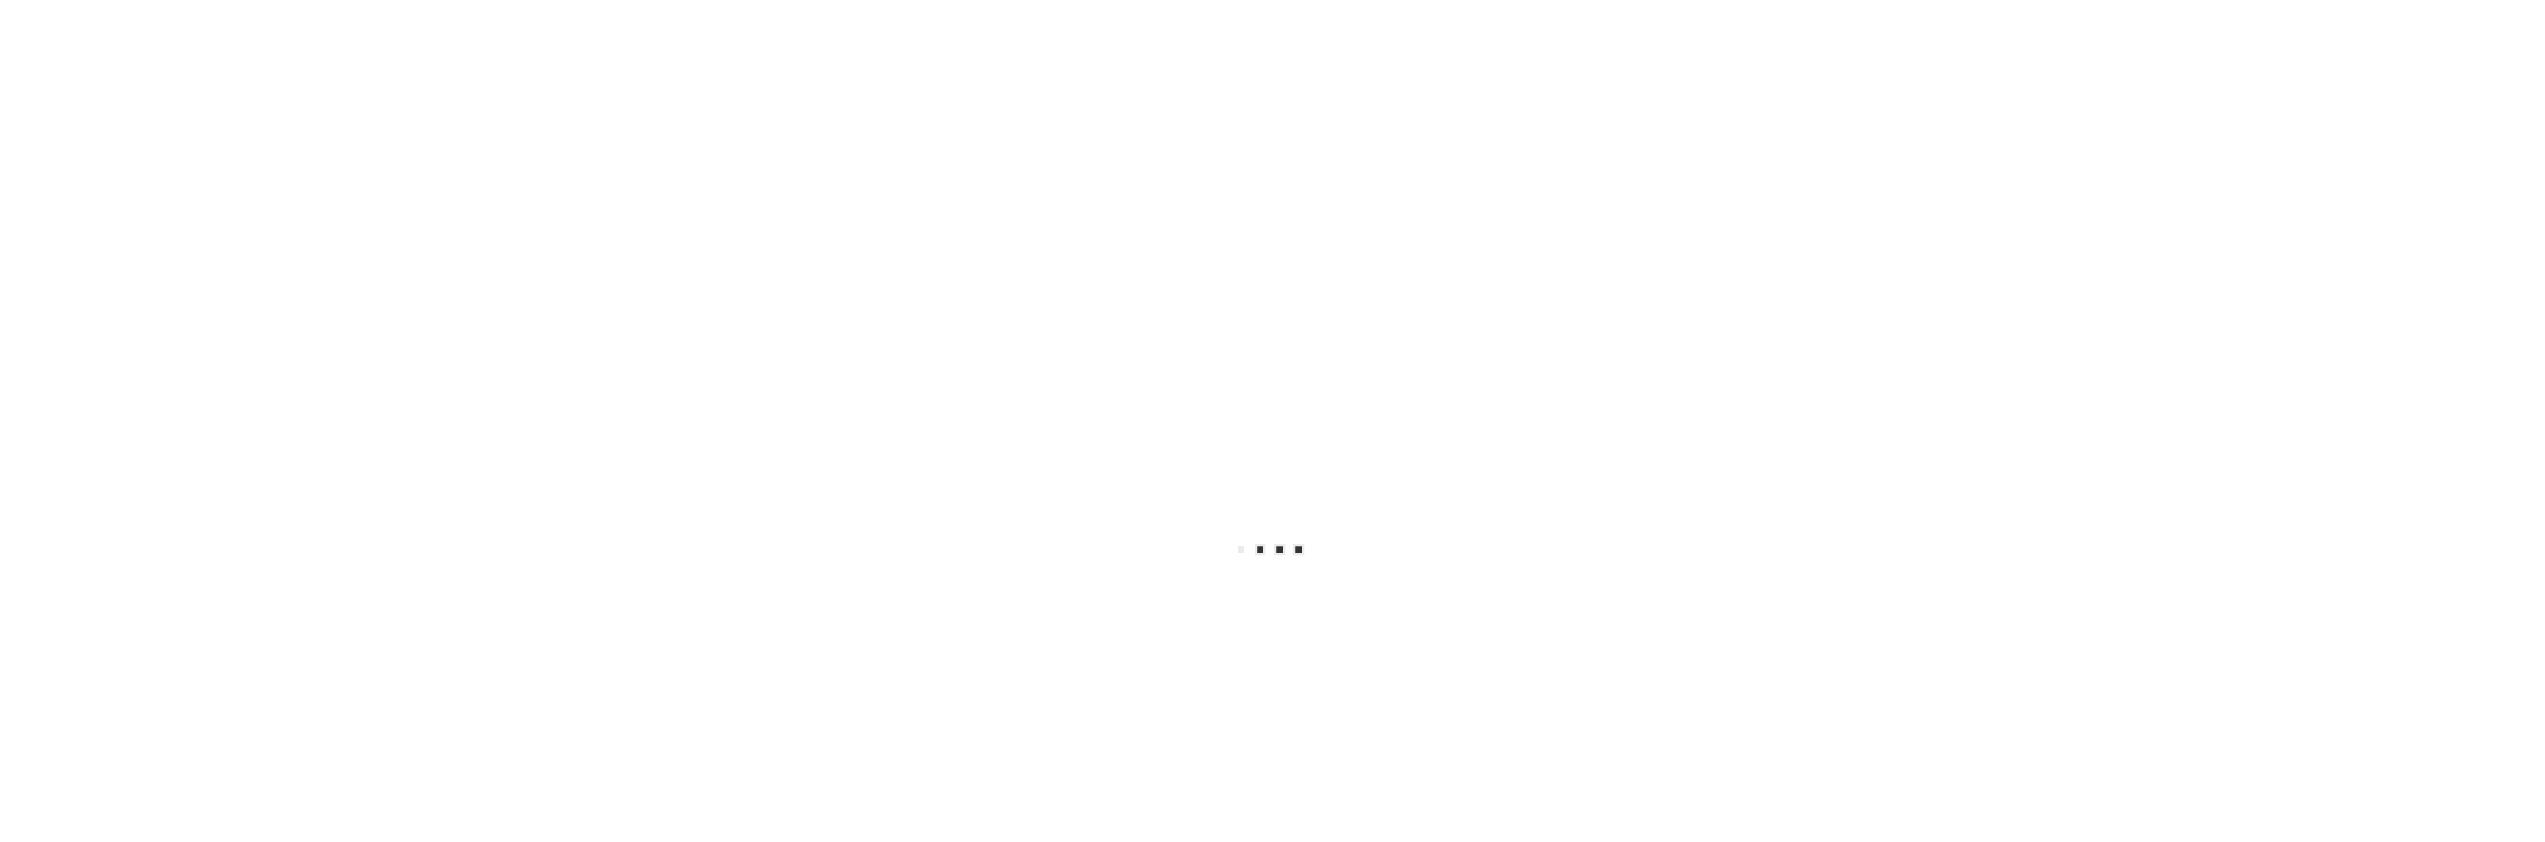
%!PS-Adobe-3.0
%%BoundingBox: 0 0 2545 842
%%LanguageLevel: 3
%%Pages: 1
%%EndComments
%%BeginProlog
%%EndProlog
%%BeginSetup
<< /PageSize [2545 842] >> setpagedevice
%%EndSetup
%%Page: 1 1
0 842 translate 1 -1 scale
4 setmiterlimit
1 setgray
0 0 2545 842 rectfill
0.922 setgray
1238 546 6 7 rectfill
0.2 setgray
newpath 1256 545 moveto 1264 545 lineto 1264 554 lineto 1256 554 lineto closepath gsave fill grestore
0.922 setgray
2 setlinewidth
stroke
0.2 setgray
newpath 1275 545 moveto 1284 545 lineto 1284 554 lineto 1275 554 lineto closepath gsave fill grestore
0.922 setgray
stroke
0.2 setgray
newpath 1294 545 moveto 1303 545 lineto 1303 554 lineto 1294 554 lineto closepath gsave fill grestore
0.922 setgray
stroke
showpage
%%EOF
